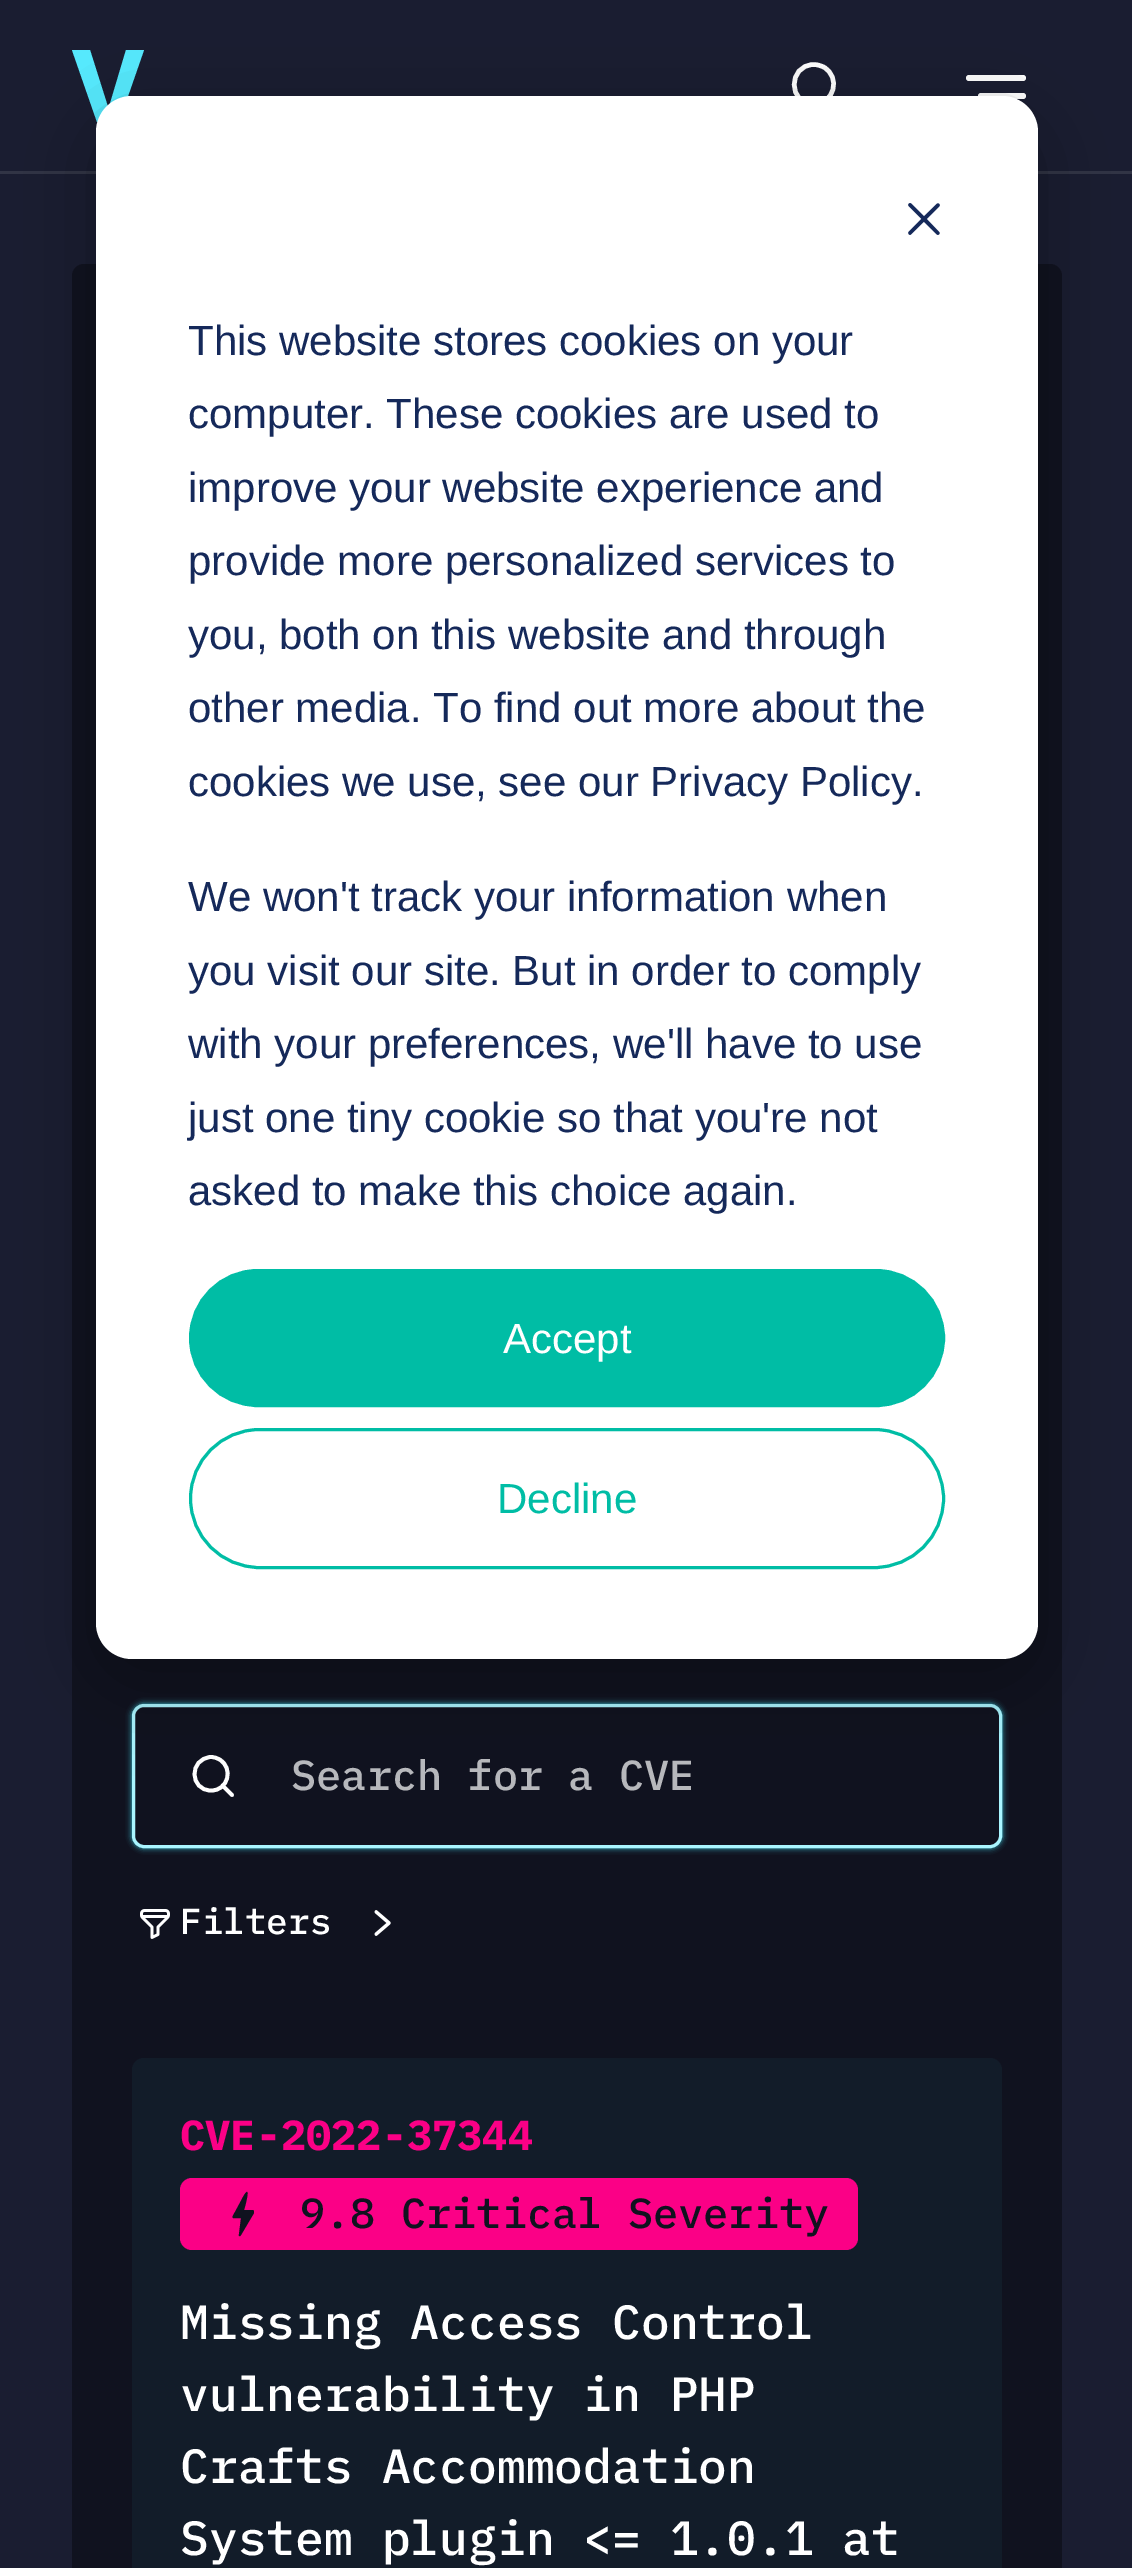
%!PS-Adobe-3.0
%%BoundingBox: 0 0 1132 2568
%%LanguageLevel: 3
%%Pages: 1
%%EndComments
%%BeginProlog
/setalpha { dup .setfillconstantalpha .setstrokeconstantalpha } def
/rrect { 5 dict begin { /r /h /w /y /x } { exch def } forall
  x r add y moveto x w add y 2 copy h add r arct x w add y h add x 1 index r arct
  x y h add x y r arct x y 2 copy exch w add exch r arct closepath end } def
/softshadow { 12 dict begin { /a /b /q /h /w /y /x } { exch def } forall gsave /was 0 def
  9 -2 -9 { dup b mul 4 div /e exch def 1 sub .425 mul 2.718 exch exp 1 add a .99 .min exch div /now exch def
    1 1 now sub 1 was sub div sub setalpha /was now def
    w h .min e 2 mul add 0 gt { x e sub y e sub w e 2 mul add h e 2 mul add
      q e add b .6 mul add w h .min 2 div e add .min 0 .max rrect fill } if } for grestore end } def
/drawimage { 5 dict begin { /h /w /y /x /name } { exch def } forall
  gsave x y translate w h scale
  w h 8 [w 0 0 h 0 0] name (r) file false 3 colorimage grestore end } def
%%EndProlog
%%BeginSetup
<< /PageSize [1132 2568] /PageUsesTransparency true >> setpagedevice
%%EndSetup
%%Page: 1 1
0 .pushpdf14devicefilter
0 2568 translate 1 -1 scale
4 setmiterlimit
0.102 0.114 0.192 setrgbcolor
0 0 1132 2568 rectfill
0.192 0.204 0.275 setrgbcolor
0 171 1132 3 rectfill
0.341 0.922 1 setrgbcolor
newpath 97 122 moveto 72 50 lineto 90 50 lineto 108 107 lineto 109 107 lineto 126 50 lineto 144 50 lineto 119 122 lineto closepath fill
1 setgray
4.5 setlinewidth
1 setlinecap
1 setlinejoin
newpath 813.5 104.5 moveto 834 104.5 841.5 77 823.5 67 curveto 820.5 65.5 817 64.5 813.5 64.5 curveto 787.5 65.5 788 104 813.5 104.5 curveto closepath 838.5 109.5 moveto 827.5 98.5 lineto stroke
966 75 60 6 3 rrect fill
978 93 48 6 3 rrect fill
0.063 0.071 0.122 setrgbcolor
72 264 990 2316 12 rrect fill
0.239 0.827 0.91 setrgbcolor
132 1704 870 144 12 3 1 softshadow
0.063 0.071 0.122 setrgbcolor
133.5 1705.5 867 141 10.5 rrect gsave fill grestore
0.663 0.961 1 setrgbcolor
3 setlinewidth
0 setlinecap
0 setlinejoin
stroke
1 setgray
3.8 setlinewidth
1 setlinecap
1 setlinejoin
newpath 211 1790.5 moveto 228 1791 234 1768 219.5 1759.5 curveto 217 1758 214 1757 211 1757 curveto 188.5 1758.5 189.5 1790.5 211 1790.5 curveto closepath 232 1795 moveto 222.5 1785.5 lineto stroke
0 setgray
96 120 942 1563 36 42 0.28 softshadow
1 setgray
96 96 942 1563 36 rrect fill
(images/1.raw) 908 203 32 32 drawimage
0 0.741 0.647 setrgbcolor
190.5 1270.5 753 135 67.5 rrect gsave fill grestore
3 setlinewidth
0 setlinecap
0 setlinejoin
stroke
190.5 1429.5 753 138 69 rrect stroke
(images/2.raw) 140 1909 30 30 drawimage
(images/3.raw) 374 1910 17 26 drawimage
0.071 0.11 0.161 setrgbcolor
132 2058 870 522 12 rrect fill
0.984 0 0.525 setrgbcolor
180 2178 678 72 12 rrect fill
0.063 0.071 0.122 setrgbcolor
newpath 252 2210 moveto 254 2210 254 2211 254 2213 curveto 241 2235 lineto 240 2237 238 2236 239 2234 curveto 241 2218 lineto 233 2218 230 2220 235 2212 curveto 243 2197 lineto 252 2181 245 2207 244 2210 curveto closepath eofill
/LiberationSans-Regular [42 0 0 -42 0 0] selectfont
0.082 0.161 0.353 setrgbcolor
188 355 moveto (This website stores cookies on your) show
188 428 moveto (computer. These cookies are used to) show
188 502 moveto (improve your website experience and) show
188 575 moveto (provide more personalized services to) show
188 649 moveto (you, both on this website and through) show
188 722 moveto (other media. To find out more about the) show
188 796 moveto (cookies we use, see our Privacy Policy.) show
188 911 moveto (We won't track your information when) show
188 985 moveto (you visit our site. But in order to comply) show
188 1058 moveto (with your preferences, we'll have to use) show
188 1132 moveto (just one tiny cookie so that you're not) show
188 1205 moveto (asked to make this choice again.) show
1 setgray
503 1353 moveto (Accept) show
0 0.741 0.647 setrgbcolor
497 1513 moveto (Decline) show
/IBMPlexMono-Medium [42 0 0 -42 0 0] selectfont
0.718 0.722 0.737 setrgbcolor
291 1790 moveto (Search for a CVE) show
/IBMPlexMono-Medium [36 0 0 -36 0 0] selectfont
1 setgray
180 1934 moveto (Filters) show
/IBMPlexMono-Bold [42 0 0 -42 0 0] selectfont
0.984 0 0.525 setrgbcolor
180 2150 moveto (CVE-2022-37344) show
/IBMPlexMono-Medium [42 0 0 -42 0 0] selectfont
0.063 0.071 0.122 setrgbcolor
300 2228 moveto (9.8 Critical Severity) show
/IBMPlexMono-Medium [48 0 0 -48 0 0] selectfont
1 setgray
180 2339 moveto (Missing Access Control) show
180 2411 moveto (vulnerability in PHP) show
180 2483 moveto (Crafts Accommodation) show
180 2555 moveto (System plugin <= 1.0.1 at) show
.poppdf14devicefilter showpage
%%EOF
